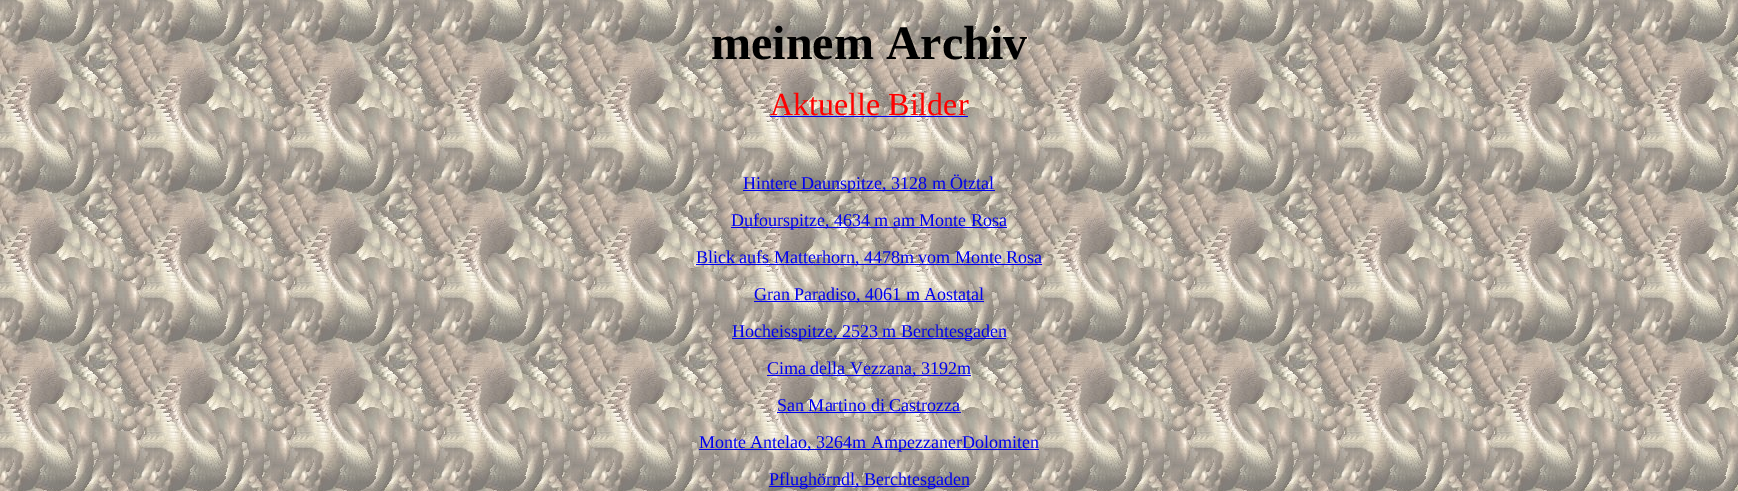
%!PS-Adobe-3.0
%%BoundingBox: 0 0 1738 491
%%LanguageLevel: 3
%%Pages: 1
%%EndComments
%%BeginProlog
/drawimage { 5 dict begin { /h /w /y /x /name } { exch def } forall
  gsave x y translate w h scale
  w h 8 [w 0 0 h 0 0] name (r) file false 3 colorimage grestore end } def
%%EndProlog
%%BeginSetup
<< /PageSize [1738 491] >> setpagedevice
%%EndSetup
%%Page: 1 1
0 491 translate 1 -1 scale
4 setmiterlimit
1 setgray
0 0 1738 491 rectfill
(images/1.raw) 0 0 1738 491 drawimage
0 0 0.933 setrgbcolor
770 116 198 1 rectfill
743 190 252 1 rectfill
731 227 276 1 rectfill
696 264 346 1 rectfill
754 301 230 1 rectfill
732 338 274 1 rectfill
767 375 204 1 rectfill
777 412 184 1 rectfill
699 449 340 1 rectfill
769 486 200 1 rectfill
/LiberationSerif-Bold [48 0 0 -48 0 0] selectfont
0 setgray
711 59 moveto (meinem Archiv) show
/LiberationSerif-Regular [32 0 0 -32 0 0] selectfont
1 0 0 setrgbcolor
770 115 moveto (Aktuelle Bilder) show
/LiberationSerif-Regular [18 0 0 -18 0 0] selectfont
0 0 0.933 setrgbcolor
743 189 moveto (Hintere Daunspitze, 3128 m Ötztal) show
731 226 moveto (Dufourspitze, 4634 m am Monte Rosa) show
696 263 moveto (Blick aufs Matterhorn, 4478m vom Monte Rosa) show
754 300 moveto (Gran Paradiso, 4061 m Aostatal) show
732 337 moveto (Hocheisspitze, 2523 m Berchtesgaden) show
767 374 moveto (Cima della Vezzana, 3192m) show
777 411 moveto (San Martino di Castrozza) show
699 448 moveto (Monte Antelao, 3264m AmpezzanerDolomiten) show
769 485 moveto (Pflughörndl, Berchtesgaden) show
showpage
%%EOF
